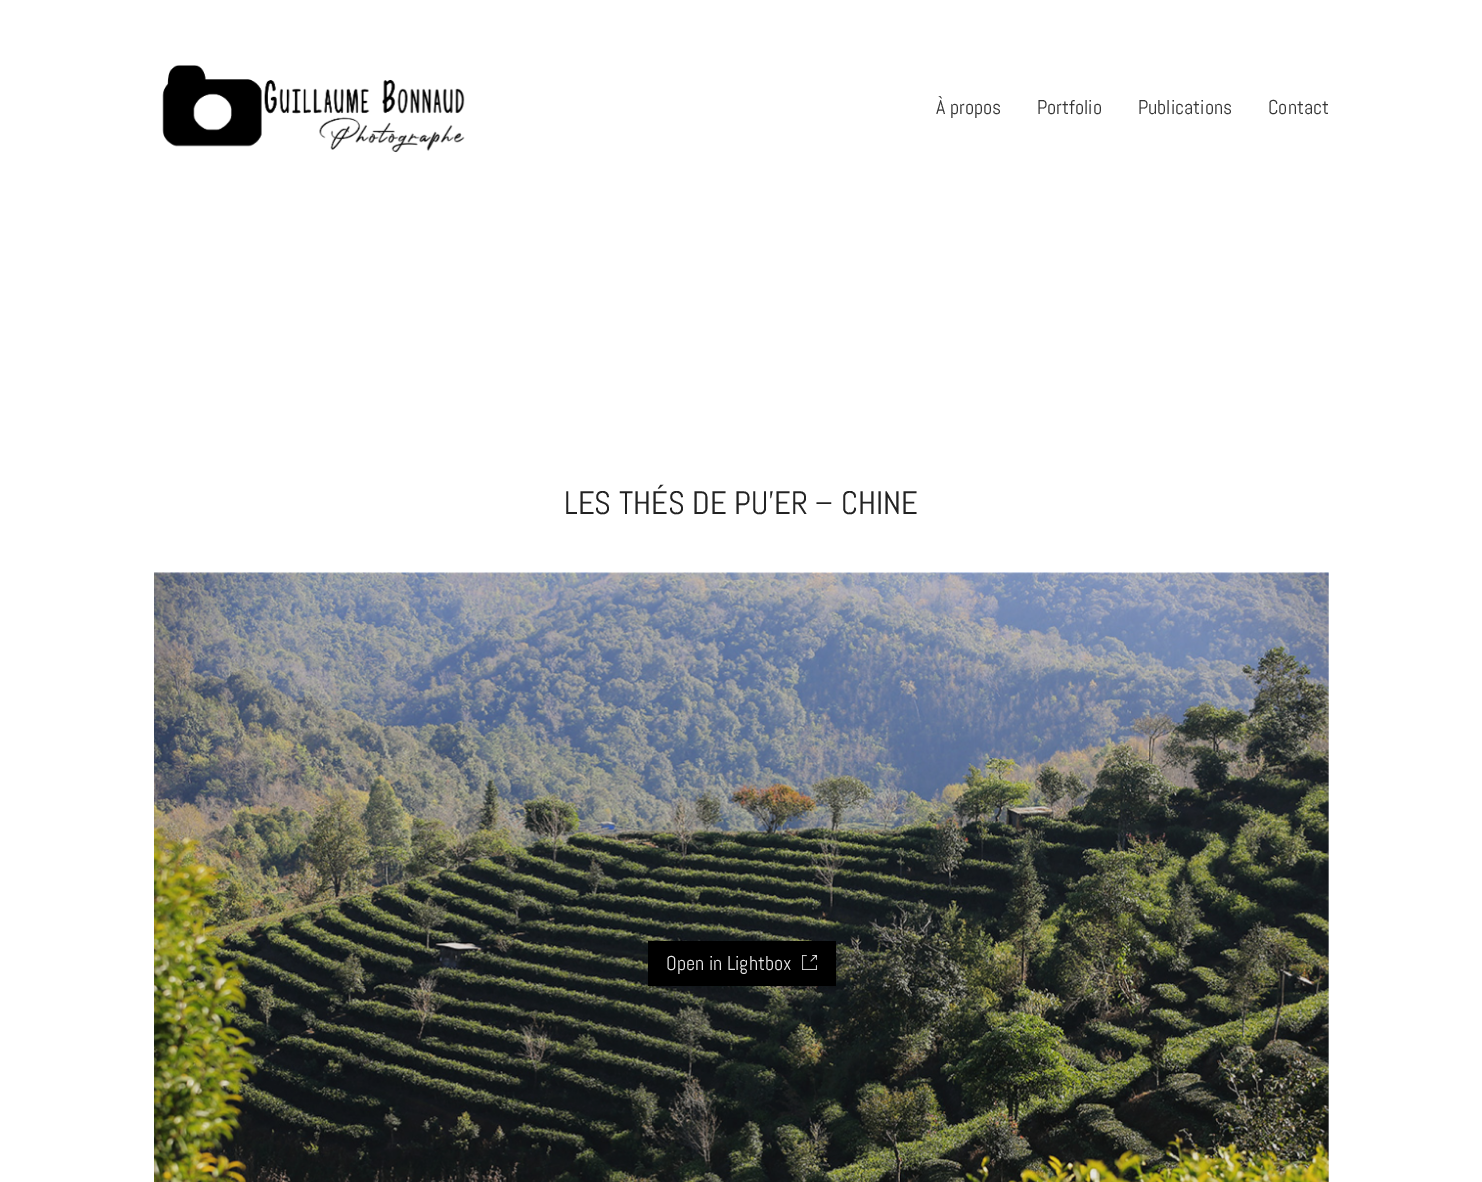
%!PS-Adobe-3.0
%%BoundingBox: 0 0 1482 1182
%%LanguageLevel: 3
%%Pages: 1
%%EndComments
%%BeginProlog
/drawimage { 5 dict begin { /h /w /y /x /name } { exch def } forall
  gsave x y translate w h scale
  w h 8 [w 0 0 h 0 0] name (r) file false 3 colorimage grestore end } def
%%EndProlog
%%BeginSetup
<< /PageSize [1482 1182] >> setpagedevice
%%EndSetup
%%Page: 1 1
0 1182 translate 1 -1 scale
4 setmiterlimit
1 setgray
0 0 1482 1182 rectfill
0.902 setgray
154 573 1175 609 rectfill
(images/1.raw) 162 65 303 88 drawimage
(images/2.raw) 154 572 1175 610 drawimage
0 setgray
648 941 188 45 rectfill
(images/3.raw) 802 955 15 15 drawimage
/Abel-Regular [20 0 0 -20 0 0] selectfont
0.2 setgray
936 114 moveto (À propos) show
1037 114 moveto (Portfolio) show
1138 114 moveto (Publications) show
1268 114 moveto (Contact) show
/Abel-Regular [32.5 0 0 -32.5 0 0] selectfont
0.133 setgray
564 514 moveto (LES THÉS DE PU’ER – CHINE) show
/Abel-Regular [20 0 0 -20 0 0] selectfont
0.902 setgray
666 970 moveto (Open in Lightbox) show
showpage
%%EOF
